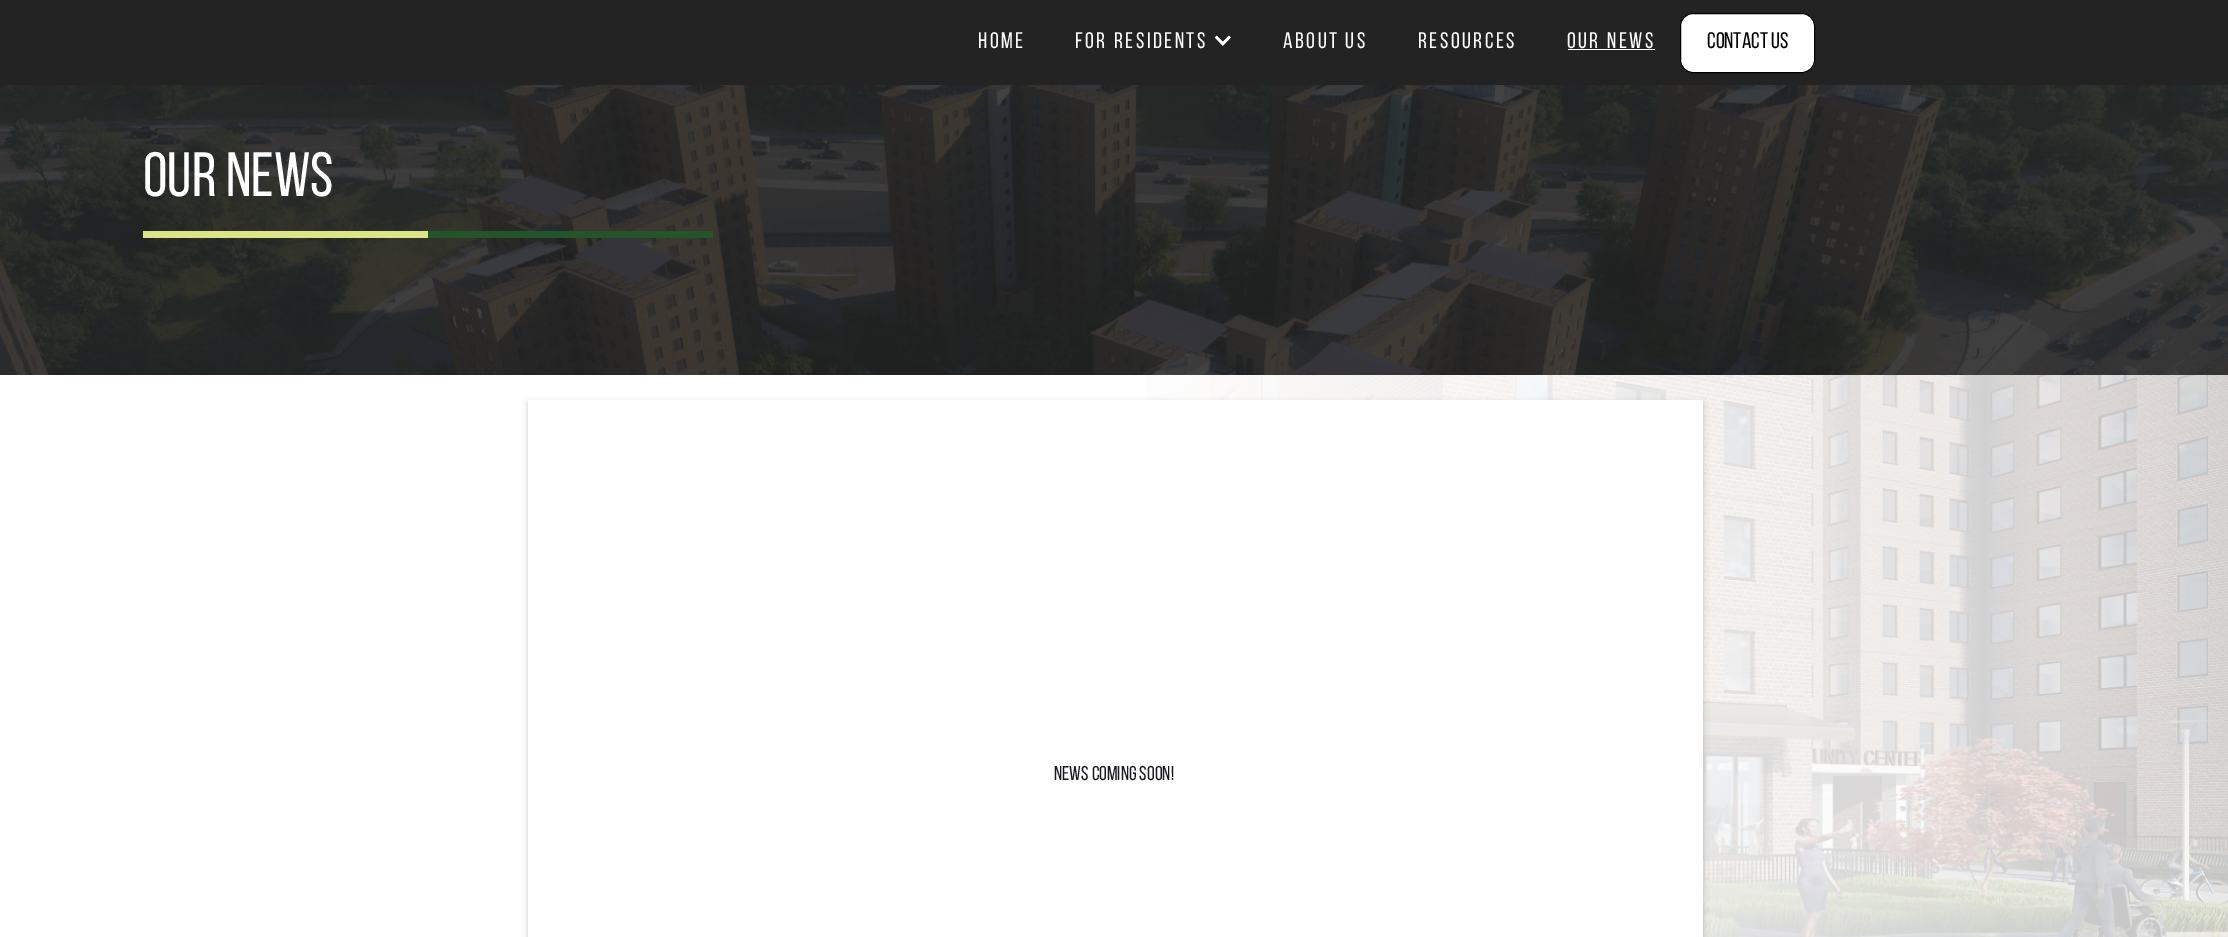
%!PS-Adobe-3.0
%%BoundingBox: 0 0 2228 937
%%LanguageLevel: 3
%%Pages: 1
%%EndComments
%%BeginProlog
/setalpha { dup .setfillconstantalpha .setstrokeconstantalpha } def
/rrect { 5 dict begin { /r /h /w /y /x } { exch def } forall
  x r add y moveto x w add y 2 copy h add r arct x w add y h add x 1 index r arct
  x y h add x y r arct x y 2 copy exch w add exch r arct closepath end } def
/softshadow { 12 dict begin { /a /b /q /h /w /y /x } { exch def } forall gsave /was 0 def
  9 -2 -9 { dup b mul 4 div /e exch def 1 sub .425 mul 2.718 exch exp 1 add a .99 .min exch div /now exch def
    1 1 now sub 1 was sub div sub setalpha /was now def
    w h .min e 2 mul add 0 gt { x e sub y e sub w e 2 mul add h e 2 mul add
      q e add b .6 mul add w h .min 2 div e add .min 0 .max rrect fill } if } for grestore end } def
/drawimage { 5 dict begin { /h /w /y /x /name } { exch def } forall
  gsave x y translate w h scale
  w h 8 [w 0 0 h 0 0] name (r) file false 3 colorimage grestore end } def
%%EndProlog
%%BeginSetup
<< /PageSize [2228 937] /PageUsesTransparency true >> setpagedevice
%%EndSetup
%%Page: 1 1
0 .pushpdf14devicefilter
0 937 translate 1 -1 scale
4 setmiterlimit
1 setgray
0 0 2228 937 rectfill
0.137 setgray
0 0 2228 85 rectfill
(images/1.raw) 1214 35 17 11 drawimage
1 setgray
1568 49 87 1 rectfill
1680.5 13.5 134 59 12.5 rrect gsave fill grestore
0 setgray
stroke
(images/2.raw) 0 85 2228 290 drawimage
0.851 0.898 0.529 setrgbcolor
143 231 285 7 rectfill
0.141 0.333 0.161 setrgbcolor
428 231 285 7 rectfill
(images/3.raw) 1146 375 1082 562 drawimage
0 setgray
528 403 1175 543 0 3 0.2 softshadow
1 setgray
528 400 1175 537 rectfill
/BebasNeue-Regular [22.5 0 0 -22.5 0 0] selectfont
978 48 moveto 2.5 0 (Home) ashow
1075 48 moveto 2.5 0 (For Residents) ashow
1283 48 moveto 2.5 0 (about us) ashow
1418 48 moveto 2.5 0 (resources) ashow
1567 48 moveto 2.5 0 (our news) ashow
0 setgray
1707 48 moveto (Contact Us) show
/BebasNeue-Regular [62.5 0 0 -62.5 0 0] selectfont
1 setgray
143 196 moveto (Our News) show
/BebasNeue-Regular [20 0 0 -20 0 0] selectfont
0.102 0.106 0.122 setrgbcolor
1054 780 moveto (News coming soon!) show
.poppdf14devicefilter showpage
%%EOF
